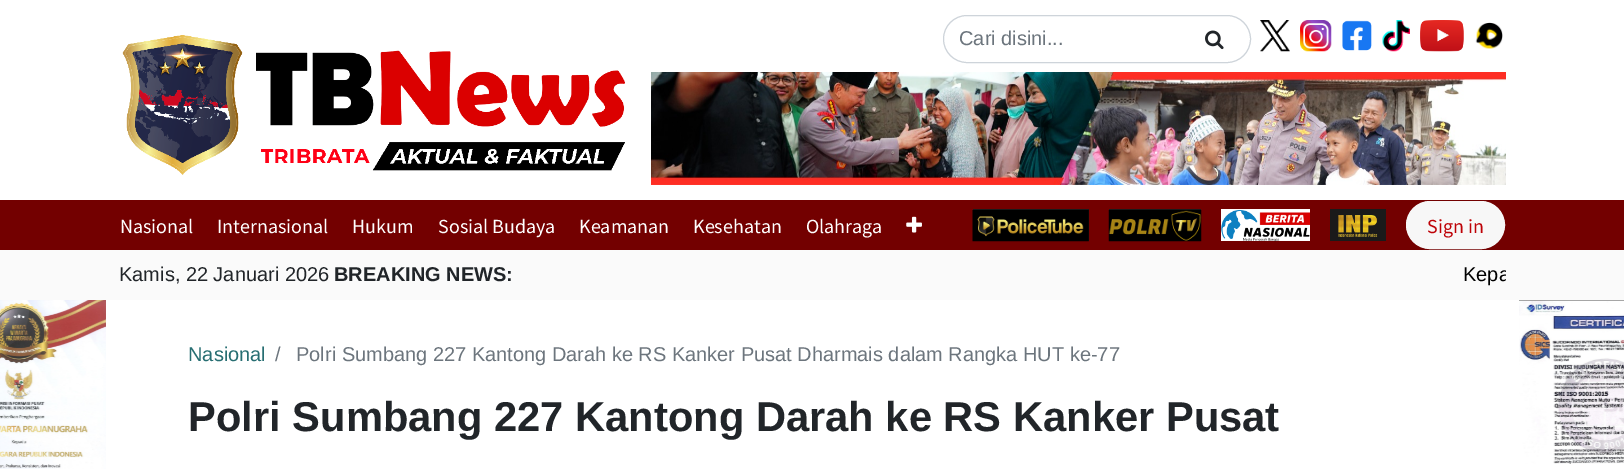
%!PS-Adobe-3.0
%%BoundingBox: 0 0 1624 469
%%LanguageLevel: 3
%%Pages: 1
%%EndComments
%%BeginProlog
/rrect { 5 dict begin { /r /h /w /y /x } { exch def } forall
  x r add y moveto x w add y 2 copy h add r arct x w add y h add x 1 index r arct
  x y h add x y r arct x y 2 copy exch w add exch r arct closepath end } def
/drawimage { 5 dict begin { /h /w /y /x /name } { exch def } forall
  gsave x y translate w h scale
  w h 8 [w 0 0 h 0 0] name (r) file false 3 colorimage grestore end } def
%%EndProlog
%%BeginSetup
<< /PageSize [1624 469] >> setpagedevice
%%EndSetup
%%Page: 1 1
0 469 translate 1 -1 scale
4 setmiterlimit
1 setgray
0 0 1624 469 rectfill
(images/1.raw) 122 35 503 140 drawimage
0.808 0.831 0.855 setrgbcolor
943.5 15.5 307 47 23.5 rrect stroke
(images/2.raw) 1205 30 19 20 drawimage
(images/3.raw) 1260 20 30 32 drawimage
(images/4.raw) 1300 20 32 32 drawimage
(images/5.raw) 1342 20 30 31 drawimage
(images/6.raw) 1382 20 28 32 drawimage
(images/7.raw) 1420 20 44 32 drawimage
(images/8.raw) 1475 22 28 27 drawimage
(images/9.raw) 651 72 855 113 drawimage
0.451 0 0 setrgbcolor
0 200 1624 50 rectfill
(images/10.raw) 906 216 16 17 drawimage
0.102 setgray
973 209 116 32 rectfill
(images/11.raw) 972 210 117 32 drawimage
1109 209 92 1 rectfill
(images/12.raw) 1108 210 94 32 drawimage
1 setgray
1221 209 89 32 rectfill
(images/13.raw) 1221 210 89 32 drawimage
0.102 setgray
1330 209 56 32 rectfill
(images/14.raw) 1338 215 40 22 drawimage
0.969 setgray
1406.5 201.5 98 47 23.5 rrect gsave fill grestore
stroke
0.98 setgray
0 250 1624 50 rectfill
(images/15.raw) 0 300 106 169 drawimage
(images/16.raw) 1519 300 105 164 drawimage
/LiberationSans-Regular [20 0 0 -20 0 0] selectfont
0.424 0.459 0.49 setrgbcolor
959 45 moveto (Cari disini...) show
/SourceSansPro-Regular [20 0 0 -20 0 0] selectfont
1 setgray
120 233 moveto (Nasional) show
217 233 moveto (Internasional) show
352 233 moveto (Hukum) show
438 233 moveto (Sosial Budaya) show
579 233 moveto (Keamanan) show
693 233 moveto (Kesehatan) show
806 233 moveto (Olahraga) show
0.745 0.004 0.024 setrgbcolor
1427 233 moveto (Sign in) show
/LiberationSans-Regular [20 0 0 -20 0 0] selectfont
0.129 0.145 0.161 setrgbcolor
119 281 moveto (Kamis, 22 Januari 2026) show
/LiberationSans-Bold [20 0 0 -20 0 0] selectfont
334 281 moveto (BREAKING NEWS:) show
gsave
524 260 982 30 rectclip
/LiberationSans-Regular [20 0 0 -20 0 0] selectfont
0 setgray
1463 281 moveto (Kepa) show
grestore
/LiberationSans-Regular [20 0 0 -20 0 0] selectfont
0.153 0.431 0.447 setrgbcolor
188 361 moveto (Nasional) show
0.424 0.459 0.49 setrgbcolor
275 361 moveto (/) show
296 361 moveto (Polri Sumbang 227 Kantong Darah ke RS Kanker Pusat Dharmais dalam Rangka HUT ke-77) show
/LiberationSans-Bold [41.7 0 0 -41.7 0 0] selectfont
0.129 0.145 0.161 setrgbcolor
188 431 moveto (Polri Sumbang 227 Kantong Darah ke RS Kanker Pusat) show
showpage
%%EOF
